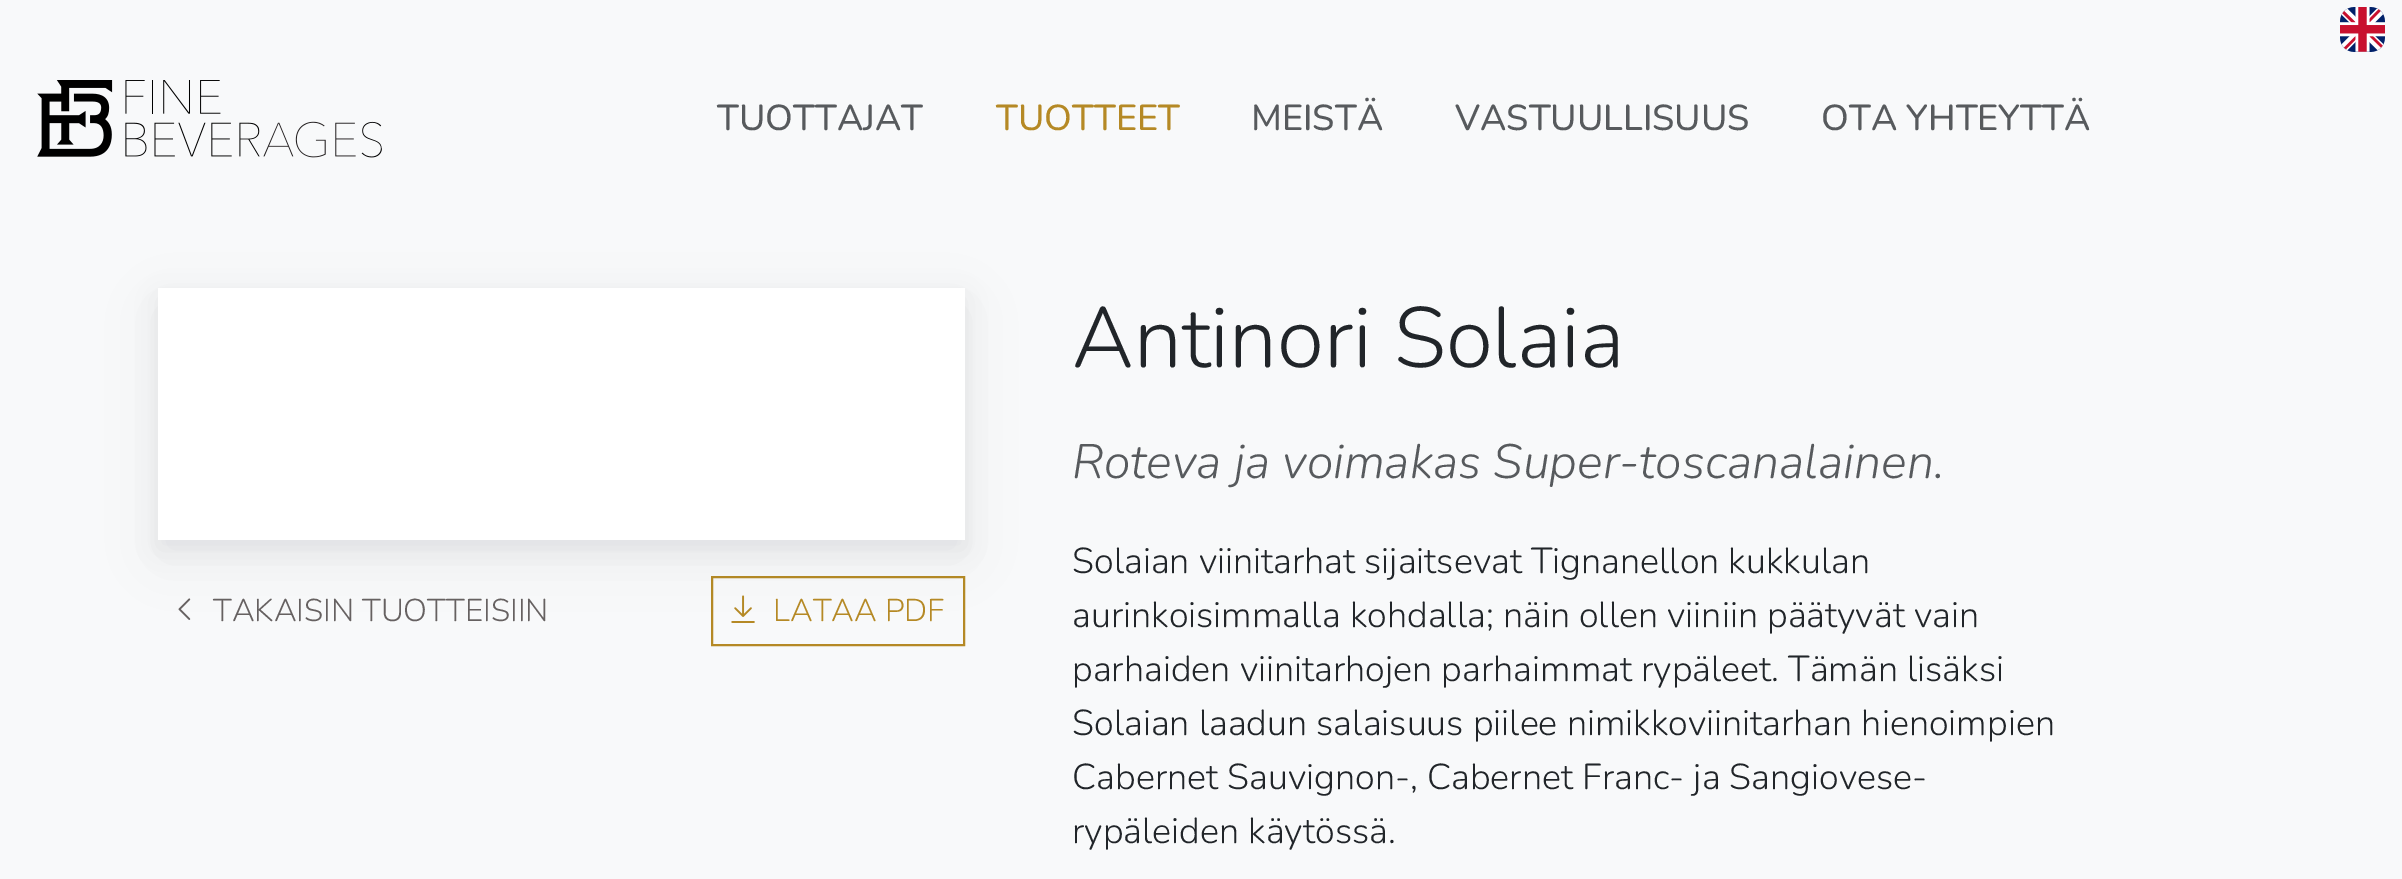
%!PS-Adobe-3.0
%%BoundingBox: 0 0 2402 879
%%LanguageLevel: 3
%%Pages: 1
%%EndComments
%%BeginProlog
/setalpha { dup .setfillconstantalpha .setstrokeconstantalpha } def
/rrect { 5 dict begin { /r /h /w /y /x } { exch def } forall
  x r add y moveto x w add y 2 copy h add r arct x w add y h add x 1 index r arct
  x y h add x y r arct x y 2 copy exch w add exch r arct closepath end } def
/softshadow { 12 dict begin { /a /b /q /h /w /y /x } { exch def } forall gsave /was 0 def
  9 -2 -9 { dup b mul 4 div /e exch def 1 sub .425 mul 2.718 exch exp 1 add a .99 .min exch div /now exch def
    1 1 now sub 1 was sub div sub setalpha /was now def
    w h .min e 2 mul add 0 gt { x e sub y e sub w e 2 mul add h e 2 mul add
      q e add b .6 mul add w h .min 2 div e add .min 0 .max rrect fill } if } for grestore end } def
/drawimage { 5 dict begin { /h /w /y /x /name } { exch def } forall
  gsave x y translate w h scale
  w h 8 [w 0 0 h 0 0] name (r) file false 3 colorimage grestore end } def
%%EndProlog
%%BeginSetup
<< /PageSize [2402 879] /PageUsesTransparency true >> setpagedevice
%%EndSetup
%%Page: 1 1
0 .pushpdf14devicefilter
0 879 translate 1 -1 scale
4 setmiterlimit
0.973 0.976 0.98 setrgbcolor
0 0 2402 879 rectfill
(images/1.raw) 2340 7 45 45 drawimage
(images/2.raw) 37 80 345 78 drawimage
(images/3.raw) 178 598 13 22 drawimage
0.71 0.537 0.145 setrgbcolor
2 setlinewidth
712 577 252 68 rectstroke
(images/4.raw) 731 595 24 28 drawimage
0.067 0.067 0.102 setrgbcolor
158 306 807 252 0 30.5 0.05 softshadow
158 297 807 252 0 13.5 0.05 softshadow
1 setgray
158 288 807 252 rectfill
/Nunito-Medium [36 0 0 -36 0 0] selectfont
0.341 0.353 0.365 setrgbcolor
717 130 moveto (TUOTTAJAT) show
0.71 0.537 0.145 setrgbcolor
996 130 moveto (TUOTTEET) show
0.341 0.353 0.365 setrgbcolor
1251 130 moveto (MEISTÄ) show
1455 130 moveto (VASTUULLISUUS) show
1821 130 moveto (OTA YHTEYTTÄ) show
/Nunito-Light [31.5 0 0 -31.5 0 0] selectfont
0.4 0.38 0.38 setrgbcolor
213 621 moveto (TAKAISIN TUOTTEISIIN) show
0.71 0.537 0.145 setrgbcolor
773 621 moveto (LATAA PDF) show
/Nunito-Light [85.5 0 0 -85.5 0 0] selectfont
0.129 0.145 0.161 setrgbcolor
1072 367 moveto (Antinori Solaia) show
/Nunito-LightItalic [48.25 0 0 -48.25 0 0] selectfont
0.341 0.353 0.365 setrgbcolor
1072 478 moveto (Roteva ja voimakas Super-toscanalainen.) show
/Nunito-Light [36 0 0 -36 0 0] selectfont
0.129 0.145 0.161 setrgbcolor
1072 573 moveto (Solaian viinitarhat sijaitsevat Tignanellon kukkulan) show
1072 627 moveto (aurinkoisimmalla kohdalla; näin ollen viiniin päätyvät vain) show
1072 681 moveto (parhaiden viinitarhojen parhaimmat rypäleet. Tämän lisäksi) show
1072 735 moveto (Solaian laadun salaisuus piilee nimikkoviinitarhan hienoimpien) show
1072 789 moveto (Cabernet Sauvignon-, Cabernet Franc- ja Sangiovese-) show
1072 843 moveto (rypäleiden käytössä.) show
.poppdf14devicefilter showpage
%%EOF
